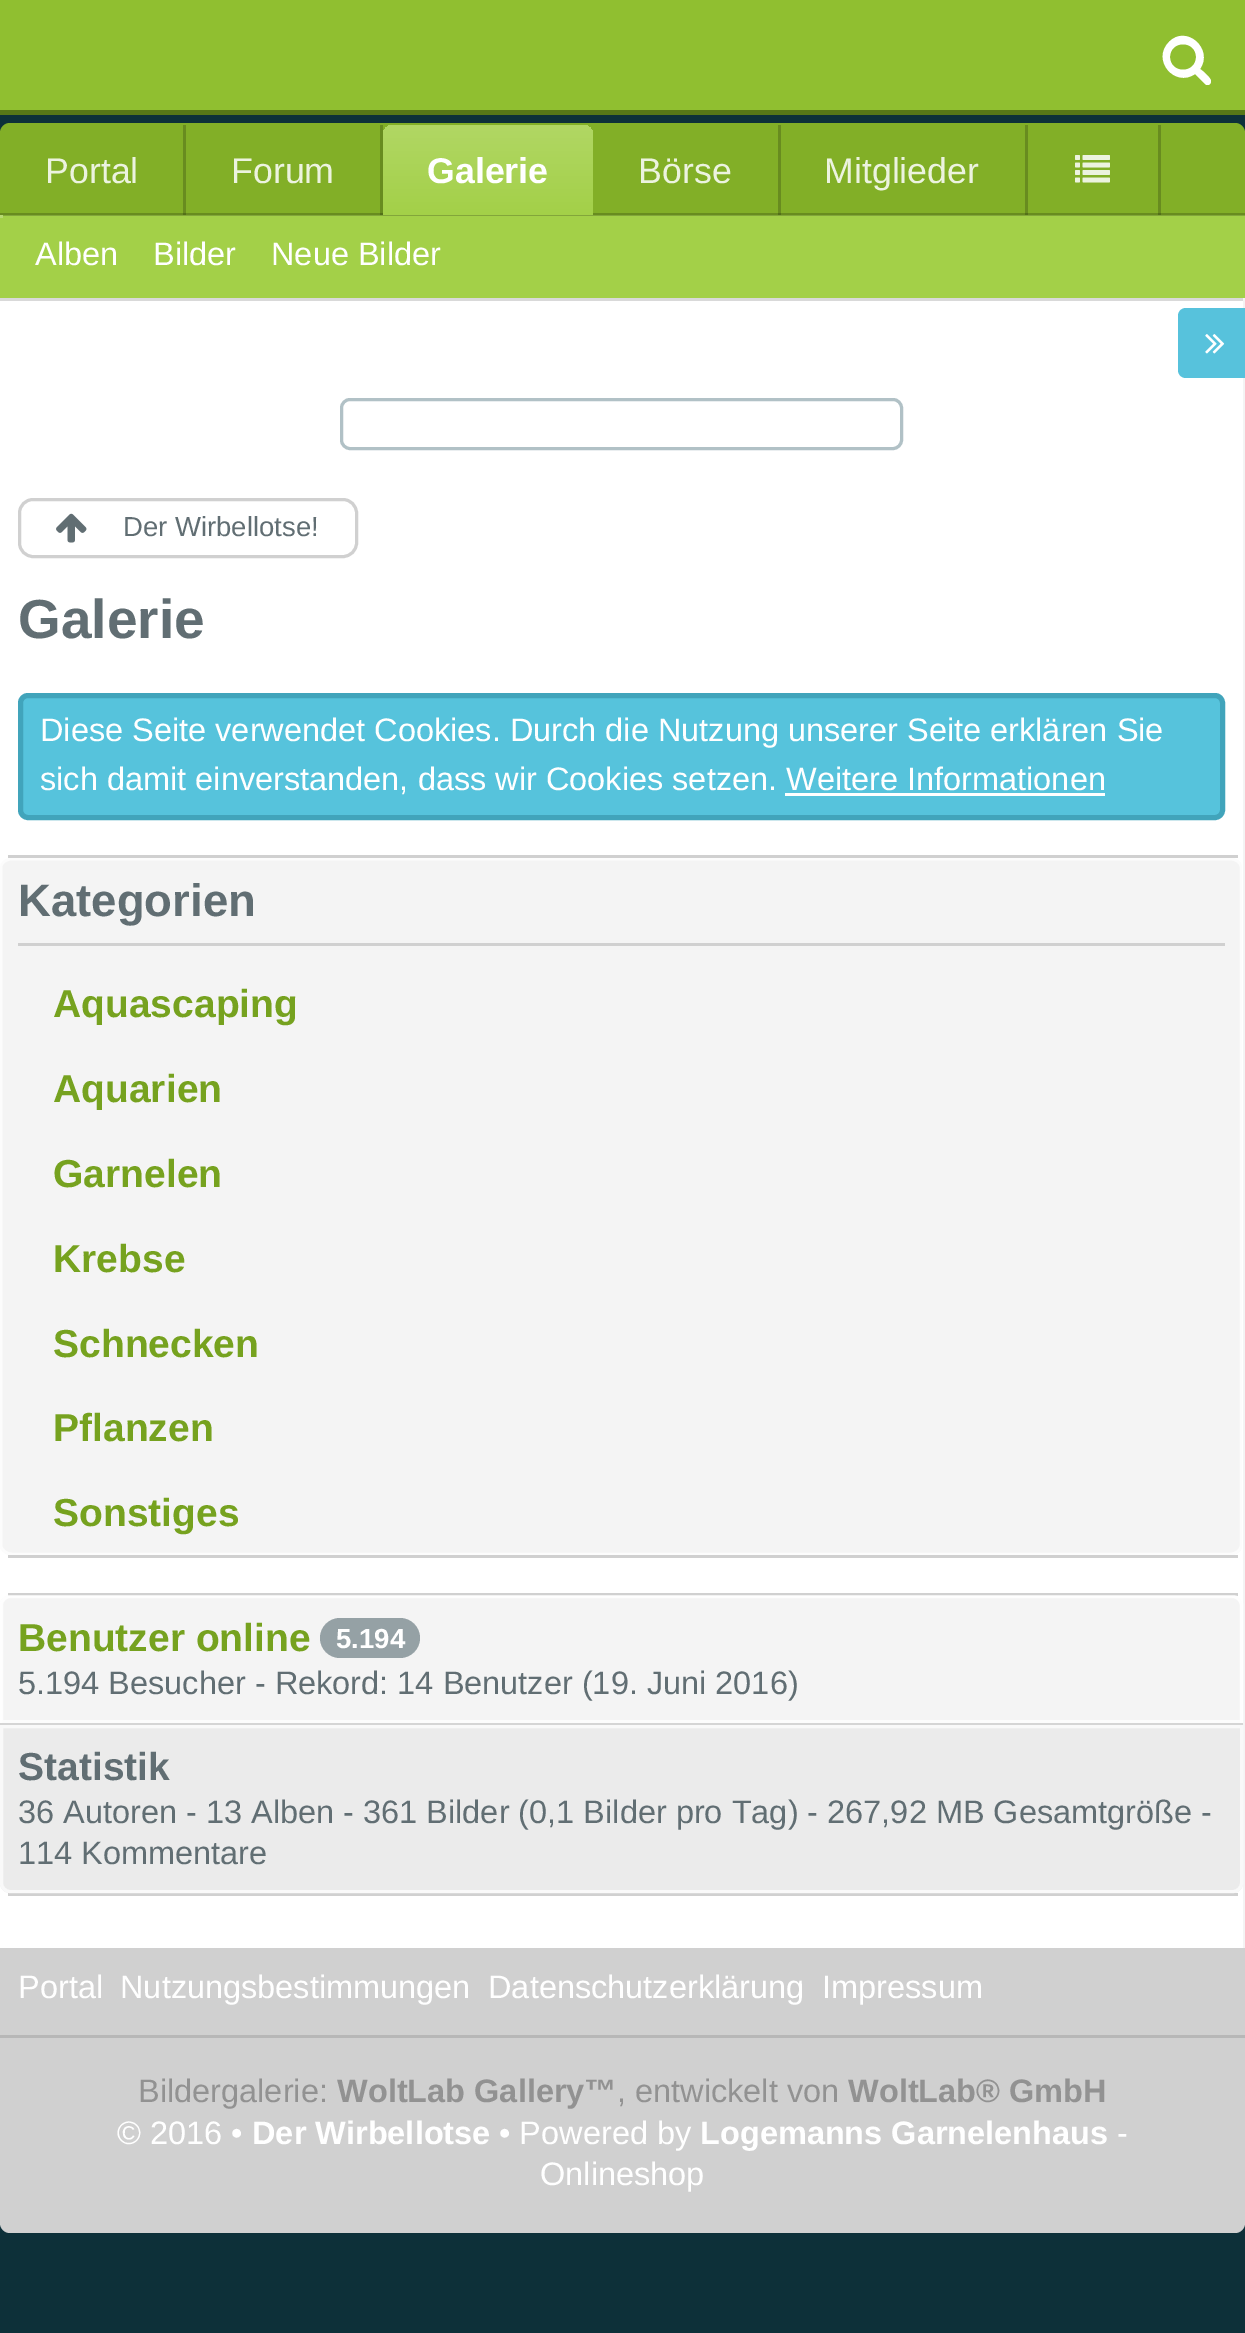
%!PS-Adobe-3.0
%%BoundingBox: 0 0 1245 2333
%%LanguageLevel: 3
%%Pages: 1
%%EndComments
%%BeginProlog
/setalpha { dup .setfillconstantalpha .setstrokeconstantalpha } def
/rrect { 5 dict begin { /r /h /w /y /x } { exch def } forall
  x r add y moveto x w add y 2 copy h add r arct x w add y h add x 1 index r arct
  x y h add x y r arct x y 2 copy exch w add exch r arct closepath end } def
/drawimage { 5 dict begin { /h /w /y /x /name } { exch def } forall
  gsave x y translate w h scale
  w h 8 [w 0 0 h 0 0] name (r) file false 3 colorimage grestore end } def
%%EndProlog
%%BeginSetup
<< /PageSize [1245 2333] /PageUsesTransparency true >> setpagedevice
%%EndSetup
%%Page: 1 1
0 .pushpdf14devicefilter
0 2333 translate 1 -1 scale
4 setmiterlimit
0.051 0.188 0.224 setrgbcolor
0 0 1245 2333 rectfill
0.565 0.749 0.188 setrgbcolor
0 0 1245 110 rectfill
0.341 0.467 0.09 setrgbcolor
0 110 1245 5 rectfill
1 setgray
newpath 1196 57 moveto 1196 74 1170 74 1170 57 curveto 1170 40 1196 40 1196 57 curveto closepath 1211 81 moveto 1211 78 1203 71 1200 69 curveto 1214 49 1186 24 1169 42 curveto 1151 60 1175 88 1195 74 curveto 1205 84 lineto 1206 85 1207 85 1208 85 curveto 1210 85 1211 83 1211 81 curveto closepath fill
0.51 0.686 0.153 setrgbcolor
newpath 10 123 moveto 1235 123 lineto 1240.5 123 1245 127.5 1245 133 curveto 1245 215 lineto 0 215 lineto 0 133 lineto 0 127.5 4.5 123 10 123 curveto closepath fill
0.408 0.549 0.122 setrgbcolor
1158 125 3 90 rectfill
1025 125 3 90 rectfill
778 125 3 90 rectfill
380 125 3 90 rectfill
183 125 3 90 rectfill
0 213 1245 2 rectfill
0.325 0.439 0.098 setrgbcolor
1158 213 3 2 rectfill
1025 213 3 2 rectfill
778 213 3 2 rectfill
380 213 3 2 rectfill
183 213 3 2 rectfill
0.639 0.816 0.282 setrgbcolor
0 216 1245 82 rectfill
0.51 0.651 0.227 setrgbcolor
0 215 1245 1 rectfill
0.718 0.855 0.443 setrgbcolor
0 215 3 3 rectfill
gsave newpath 393 125 moveto 583 125 lineto 588.5 125 593 129.5 593 135 curveto 593 215 lineto 383 215 lineto 383 135 lineto 383 129.5 387.5 125 393 125 curveto closepath clip newpath
<< /ShadingType 2 /ColorSpace /DeviceRGB /Coords [488 125 488 215] /Extend [true true] /Function << /FunctionType 2 /Domain [0 1] /C0 [0.694 0.843 0.392] /C1 [0.639 0.816 0.282] /N 1 >> >> shfill grestore
(images/1.raw) 1075 155 35 28 drawimage
0.957 setgray
1243 298 2 1650 rectfill
1 setgray
0 301 1243 1647 rectfill
0.851 setgray
0 298 1243 3 rectfill
0.341 0.761 0.863 setrgbcolor
newpath 1186 308 moveto 1245 308 lineto 1245 378 lineto 1186 378 lineto 1181.5 378 1178 374.5 1178 370 curveto 1178 316 lineto 1178 311.5 1181.5 308 1186 308 curveto closepath fill
(images/2.raw) 1205 334 20 20 drawimage
0.694 0.757 0.776 setrgbcolor
3 setlinewidth
341.5 399.5 560 49 8.5 rrect stroke
0.816 setgray
19.5 499.5 337 57 13.5 rrect stroke
(images/3.raw) 56 513 31 30 drawimage
0.337 0.765 0.863 setrgbcolor
20.5 695.5 1202 122 7.5 rrect gsave fill grestore
0.255 0.643 0.733 setrgbcolor
5 setlinewidth
stroke
1 setgray
785 793 320 3 rectfill
0.957 setgray
newpath 12 858 moveto 1230 858 lineto 1237 858 1242 862 1242 868 curveto 1242 1545 lineto 1242 1551 1237 1555 1230 1555 curveto 12 1555 lineto 6 1555 0 1551 0 1545 curveto 0 868 lineto 0 862 6 858 12 858 curveto closepath fill
0.7 setalpha
1 setgray
2.5 setlinewidth
newpath 12.5 859 moveto 1230 859 lineto 1236 859 1241 862.5 1241 867.5 curveto 1241 1545 lineto 1241 1550 1236 1554 1230 1554 curveto 12.5 1554 lineto 6.5 1554 1 1550 1 1545 curveto 1 867.5 lineto 1 862.5 6.5 859 12.5 859 curveto closepath stroke
1 setalpha
0.816 setgray
8 855 1230 3 rectfill
8 1555 1230 3 rectfill
18 943 1207 3 rectfill
0.957 setgray
newpath 12 1595 moveto 1230 1595 lineto 1237 1595 1242 1599 1242 1605 curveto 1242 1882 lineto 1242 1888 1237 1892 1230 1892 curveto 12 1892 lineto 6 1892 0 1888 0 1882 curveto 0 1605 lineto 0 1599 6 1595 12 1595 curveto closepath fill
0.7 setalpha
1 setgray
newpath 12.5 1596 moveto 1230 1596 lineto 1236 1596 1241 1600 1241 1605 curveto 1241 1882.5 lineto 1241 1887.5 1236 1891 1230 1891 curveto 12.5 1891 lineto 6.5 1891 1 1887.5 1 1882.5 curveto 1 1605 lineto 1 1600 6.5 1596 12.5 1596 curveto closepath stroke
1 setalpha
0.816 setgray
8 1593 1230 3 rectfill
8 1893 1230 3 rectfill
0.7 setalpha
1 setgray
3 setlinewidth
newpath 10 1596.5 moveto 1233 1596.5 lineto 1237.5 1596.5 1241.5 1600.5 1241.5 1605 curveto 1241.5 1721.5 lineto 1.5 1721.5 lineto 1.5 1605 lineto 1.5 1600.5 5.5 1596.5 10 1596.5 curveto closepath stroke
1 setalpha
0.835 setgray
0 1723 1243 2 rectfill
0.584 0.631 0.647 setrgbcolor
320 1618 100 40 20 rrect fill
0.922 setgray
newpath 0 1725 moveto 1243 1725 lineto 1243 1883 lineto 1243 1888.5 1238.5 1893 1233 1893 curveto 10 1893 lineto 4.5 1893 0 1888.5 0 1883 curveto closepath fill
0.7 setalpha
1 setgray
newpath 1.5 1726.5 moveto 1241.5 1726.5 lineto 1241.5 1883 lineto 1241.5 1887.5 1237.5 1891.5 1233 1891.5 curveto 10 1891.5 lineto 5.5 1891.5 1.5 1887.5 1.5 1883 curveto closepath stroke
1 setalpha
0.816 setgray
newpath 0 1948 moveto 1245 1948 lineto 1245 2223 lineto 1245 2228.5 1240.5 2233 1235 2233 curveto 10 2233 lineto 4.5 2233 0 2228.5 0 2223 curveto closepath fill
0.718 setgray
0 2035 1245 3 rectfill
/LiberationSans-Regular [35.75 0 0 -35.75 0 0] selectfont
0.925 0.953 0.875 setrgbcolor
45 183 moveto (Portal) show
231 183 moveto (Forum) show
/LiberationSans-Bold [35.75 0 0 -35.75 0 0] selectfont
1 setgray
427 183 moveto (Galerie) show
/LiberationSans-Regular [35.75 0 0 -35.75 0 0] selectfont
0.925 0.953 0.875 setrgbcolor
638 183 moveto (Börse) show
824 183 moveto (Mitglieder) show
/LiberationSans-Regular [32.5 0 0 -32.5 0 0] selectfont
1 setgray
35 265 moveto (Alben) show
153 265 moveto (Bilder) show
271 265 moveto (Neue Bilder) show
/LiberationSans-Regular [27.5 0 0 -27.5 0 0] selectfont
0.38 0.431 0.451 setrgbcolor
123 536 moveto (Der Wirbellotse!) show
/LiberationSans-Bold [55 0 0 -55 0 0] selectfont
18 638 moveto (Galerie) show
/LiberationSans-Regular [32.5 0 0 -32.5 0 0] selectfont
1 setgray
40 741 moveto (Diese Seite verwendet Cookies. Durch die Nutzung unserer Seite erklären Sie) show
40 790 moveto (sich damit einverstanden, dass wir Cookies setzen. Weitere Informationen) show
/LiberationSans-Bold [45.5 0 0 -45.5 0 0] selectfont
0.38 0.431 0.451 setrgbcolor
18 916 moveto (Kategorien) show
/LiberationSans-Bold [39 0 0 -39 0 0] selectfont
0.463 0.635 0.122 setrgbcolor
53 1017 moveto (Aquascaping) show
53 1102 moveto (Aquarien) show
53 1187 moveto (Garnelen) show
53 1272 moveto (Krebse) show
53 1357 moveto (Schnecken) show
53 1441 moveto (Pflanzen) show
53 1526 moveto (Sonstiges) show
18 1651 moveto (Benutzer online) show
/LiberationSans-Bold [27.5 0 0 -27.5 0 0] selectfont
1 setgray
336 1648 moveto (5.194) show
/LiberationSans-Regular [32.5 0 0 -32.5 0 0] selectfont
0.38 0.431 0.451 setrgbcolor
18 1694 moveto (5.194 Besucher - Rekord: 14 Benutzer \(19. Juni 2016\)) show
/LiberationSans-Bold [39 0 0 -39 0 0] selectfont
18 1780 moveto (Statistik) show
/LiberationSans-Regular [32.5 0 0 -32.5 0 0] selectfont
18 1823 moveto (36 Autoren - 13 Alben - 361 Bilder \(0,1 Bilder pro Tag\) - 267,92 MB Gesamtgröße -) show
18 1864 moveto (114 Kommentare) show
1 setgray
18 1998 moveto (Portal) show
120 1998 moveto (Nutzungsbestimmungen) show
488 1998 moveto (Datenschutzerklärung) show
822 1998 moveto (Impressum) show
0.573 setgray
138 2102 moveto (Bildergalerie:) show
/LiberationSans-Bold [32.5 0 0 -32.5 0 0] selectfont
337 2102 moveto (WoltLab Gallery™) show
/LiberationSans-Regular [32.5 0 0 -32.5 0 0] selectfont
617 2102 moveto (, entwickelt von) show
/LiberationSans-Bold [32.5 0 0 -32.5 0 0] selectfont
848 2102 moveto (WoltLab® GmbH) show
/LiberationSans-Regular [32.5 0 0 -32.5 0 0] selectfont
1 setgray
117 2144 moveto (© 2016 •) show
/LiberationSans-Bold [32.5 0 0 -32.5 0 0] selectfont
252 2144 moveto (Der Wirbellotse) show
/LiberationSans-Regular [32.5 0 0 -32.5 0 0] selectfont
499 2144 moveto (• Powered by) show
/LiberationSans-Bold [32.5 0 0 -32.5 0 0] selectfont
700 2144 moveto (Logemanns Garnelenhaus) show
/LiberationSans-Regular [32.5 0 0 -32.5 0 0] selectfont
1117 2144 moveto (-) show
540 2185 moveto (Onlineshop) show
.poppdf14devicefilter showpage
%%EOF
